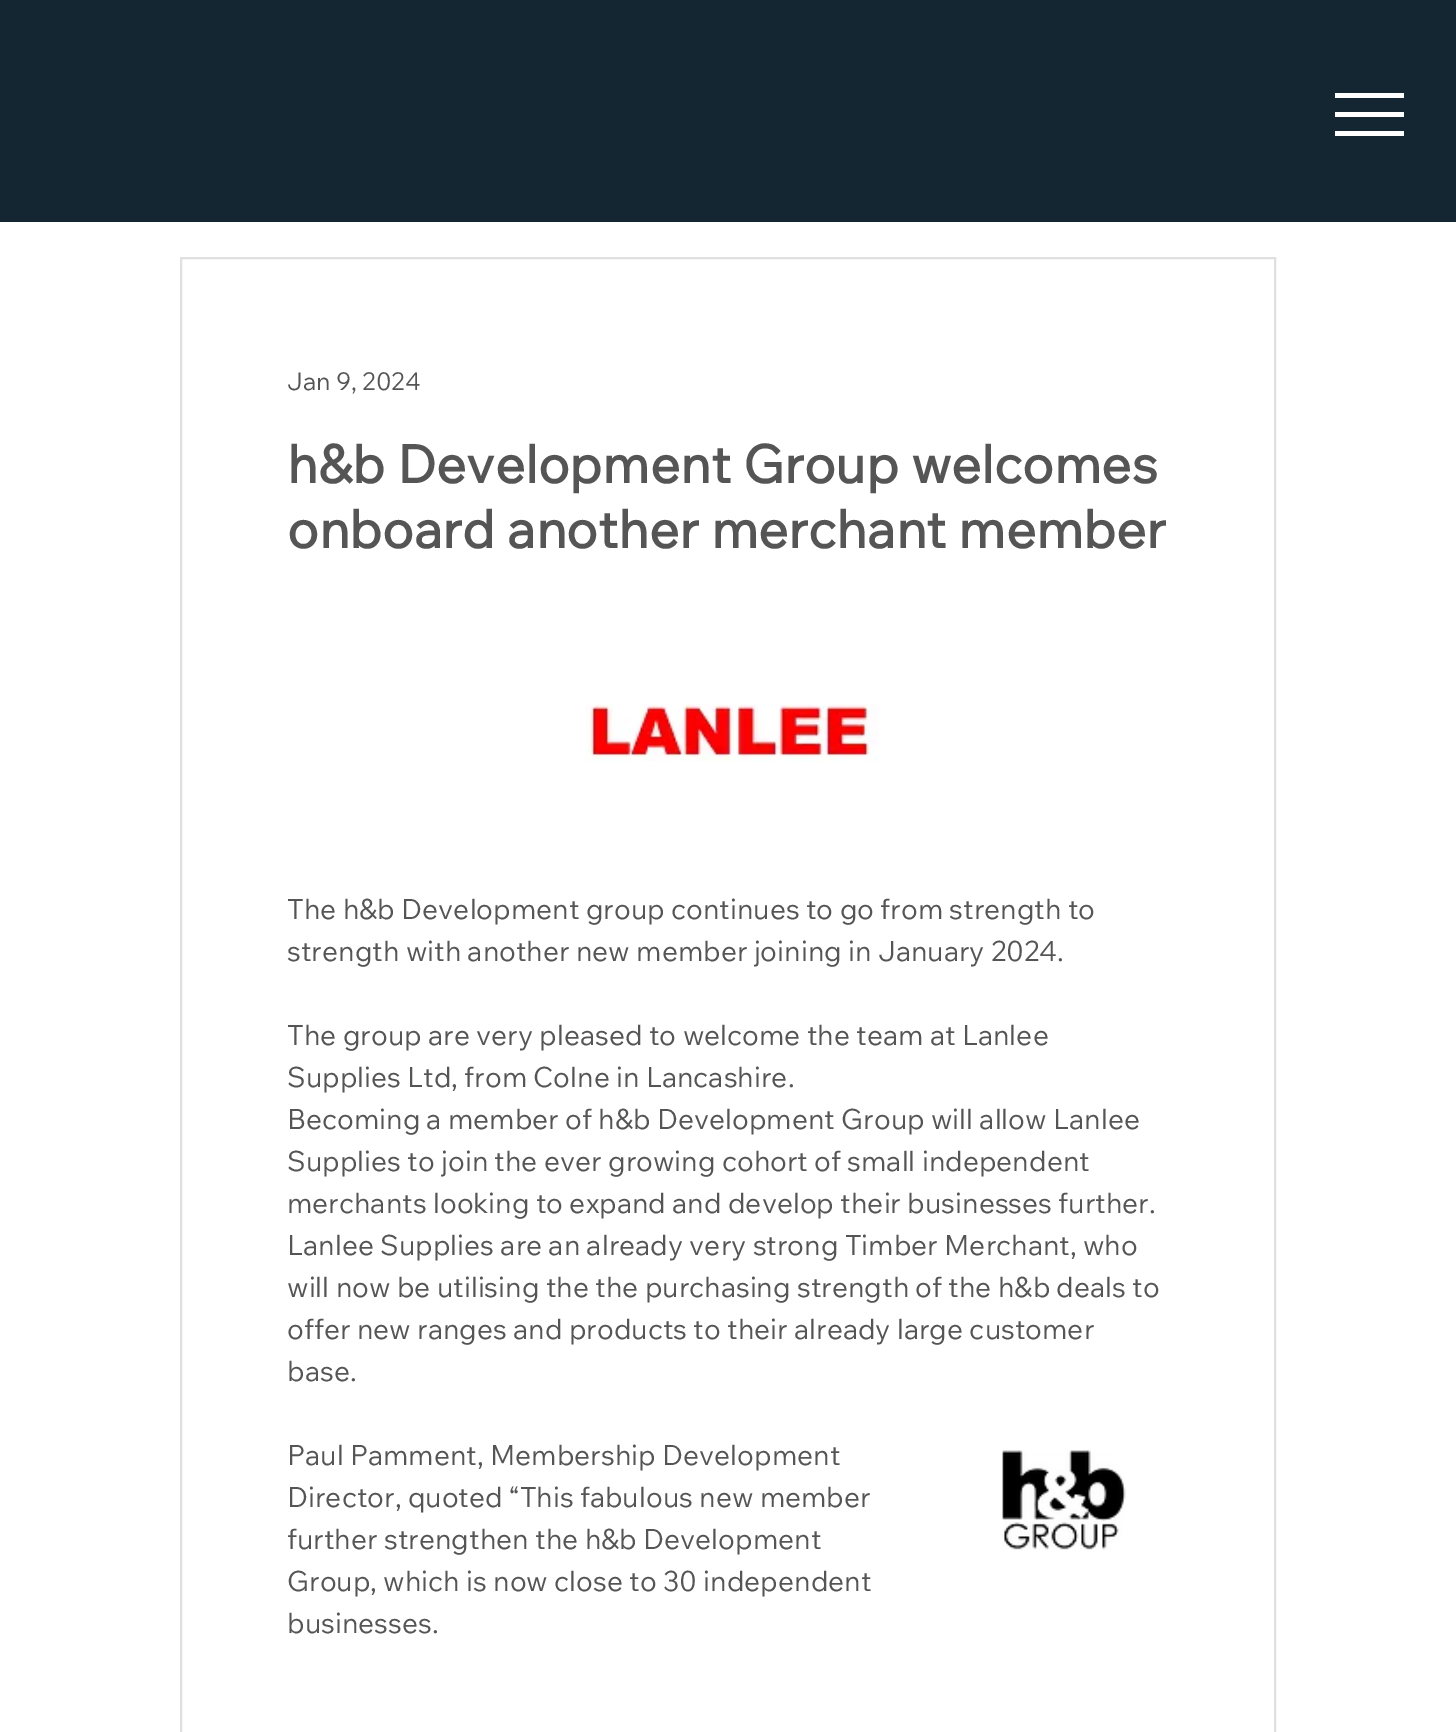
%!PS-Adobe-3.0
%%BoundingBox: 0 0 1456 1732
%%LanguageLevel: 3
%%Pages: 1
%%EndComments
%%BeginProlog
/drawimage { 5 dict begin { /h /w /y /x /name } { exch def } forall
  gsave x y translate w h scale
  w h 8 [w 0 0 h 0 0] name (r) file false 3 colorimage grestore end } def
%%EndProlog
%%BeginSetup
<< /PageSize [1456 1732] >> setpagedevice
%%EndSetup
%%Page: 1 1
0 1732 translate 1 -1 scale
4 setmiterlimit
1 setgray
0 0 1456 1732 rectfill
0.078 0.149 0.196 setrgbcolor
0 0 1456 222 rectfill
1 setgray
1335 131 69 5 rectfill
1335 93 69 5 rectfill
1335 112 69 5 rectfill
0.878 setgray
2 setlinewidth
181 258 1094 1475 rectstroke
(images/1.raw) 585 704 294 58 drawimage
(images/2.raw) 1002 1450 124 100 drawimage
/WixMadeforText-Regular [24.5 0 0 -24.5 0 0] selectfont
0.333 setgray
287 390 moveto (Jan 9, 2024) show
/WixMadeforText-Bold [52.5 0 0 -52.5 0 0] selectfont
287 483 moveto (h&b Development Group welcomes) show
287 548 moveto (onboard another merchant member) show
/WixMadeforText-Regular [28 0 0 -28 0 0] selectfont
287 919 moveto (The h&b Development group continues to go from strength to) show
287 961 moveto (strength with another new member joining in January 2024.) show
287 1045 moveto (The group are very pleased to welcome the team at Lanlee) show
287 1087 moveto (Supplies Ltd, from Colne in Lancashire.) show
287 1129 moveto (Becoming a member of h&b Development Group will allow Lanlee) show
287 1171 moveto (Supplies to join the ever growing cohort of small independent) show
287 1213 moveto (merchants looking to expand and develop their businesses further.) show
287 1255 moveto (Lanlee Supplies are an already very strong Timber Merchant, who) show
287 1297 moveto (will now be utilising the the purchasing strength of the h&b deals to) show
287 1339 moveto (offer new ranges and products to their already large customer) show
287 1381 moveto (base.) show
287 1465 moveto (Paul Pamment, Membership Development) show
287 1507 moveto (Director, quoted “This fabulous new member) show
287 1549 moveto (further strengthen the h&b Development) show
287 1591 moveto (Group, which is now close to 30 independent) show
287 1633 moveto (businesses.) show
showpage
%%EOF
